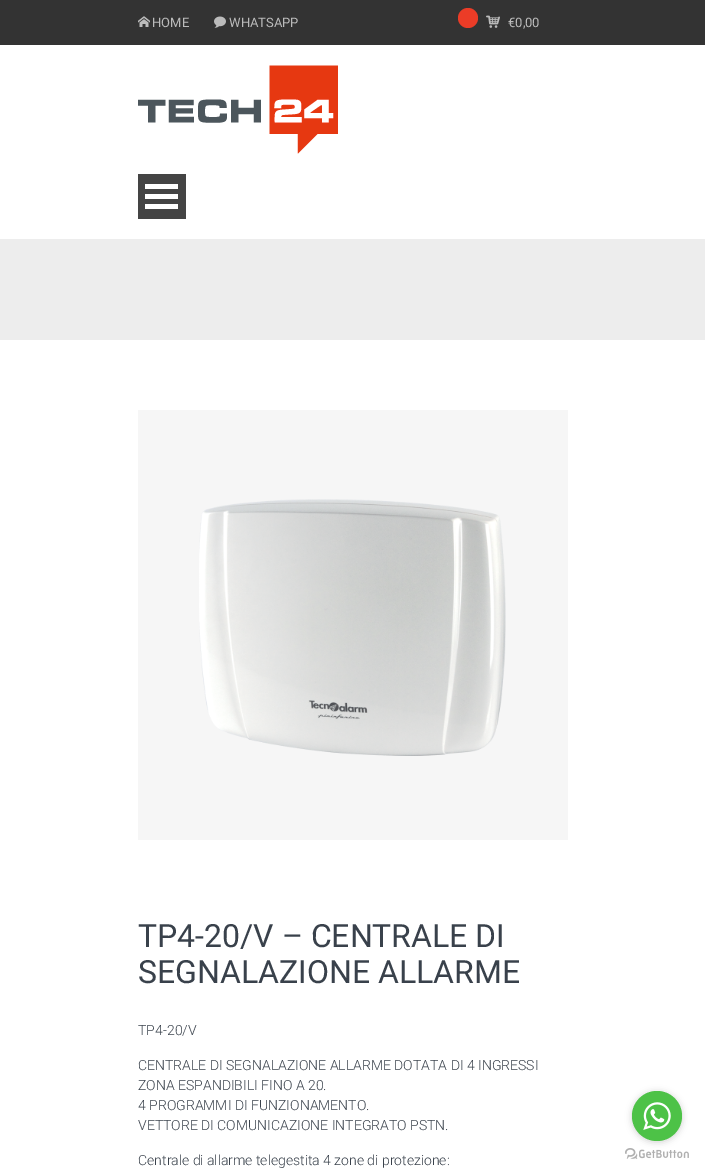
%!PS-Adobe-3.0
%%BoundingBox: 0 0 705 1175
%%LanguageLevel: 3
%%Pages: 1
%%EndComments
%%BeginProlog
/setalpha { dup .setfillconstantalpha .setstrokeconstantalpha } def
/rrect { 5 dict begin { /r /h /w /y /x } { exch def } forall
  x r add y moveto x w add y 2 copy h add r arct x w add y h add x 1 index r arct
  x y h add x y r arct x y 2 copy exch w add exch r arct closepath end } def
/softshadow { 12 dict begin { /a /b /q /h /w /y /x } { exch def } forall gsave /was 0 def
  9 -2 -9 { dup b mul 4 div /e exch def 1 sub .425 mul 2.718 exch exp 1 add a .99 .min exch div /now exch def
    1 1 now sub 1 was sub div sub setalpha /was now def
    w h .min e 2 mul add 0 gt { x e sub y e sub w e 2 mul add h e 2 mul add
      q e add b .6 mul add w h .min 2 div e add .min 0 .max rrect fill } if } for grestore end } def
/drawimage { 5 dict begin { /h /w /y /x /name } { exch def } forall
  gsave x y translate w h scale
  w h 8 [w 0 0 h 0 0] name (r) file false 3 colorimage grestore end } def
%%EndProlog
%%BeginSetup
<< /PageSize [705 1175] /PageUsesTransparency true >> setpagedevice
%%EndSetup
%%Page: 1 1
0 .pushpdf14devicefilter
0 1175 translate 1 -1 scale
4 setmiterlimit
1 setgray
0 0 705 1175 rectfill
0.2 setgray
0 0 705 45 rectfill
(images/1.raw) 138 16 12 11 drawimage
(images/2.raw) 214 16 12 12 drawimage
(images/3.raw) 486 15 14 13 drawimage
0.922 0.235 0.153 setrgbcolor
newpath 468 18 10 0 360 arc closepath fill
(images/4.raw) 138 65 200 89 drawimage
0.267 setgray
138 174 48 45 rectfill
1 setgray
145 204 33 5 rectfill
145 194 33 5 rectfill
145 184 33 5 rectfill
0.929 setgray
0 239 705 101 rectfill
0.965 setgray
138 410 430 430 rectfill
(images/5.raw) 199 499 307 257 drawimage
(images/7.raw) 625 1148 64 11 drawimage
0.533 setgray
632 1092 50 50 25 3.5 0.4 softshadow
0.302 0.761 0.278 setrgbcolor
newpath 657 1116 25 0 360 arc closepath fill
(images/6.raw) 643 1102 28 28 drawimage
/Roboto-Regular [13 0 0 -13 0 0] selectfont
0.733 setgray
152 27 moveto (HOME) show
229 27 moveto (WHATSAPP) show
508 27 moveto (€0,00) show
/Roboto-Regular [32 0 0 -32 0 0] selectfont
0.224 0.255 0.294 setrgbcolor
138 947 moveto (TP4-20/V – CENTRALE DI) show
138 983 moveto (SEGNALAZIONE ALLARME) show
/Roboto-Light [14 0 0 -14 0 0] selectfont
138 1035 moveto (TP4-20/V) show
138 1070 moveto (CENTRALE DI SEGNALAZIONE ALLARME DOTATA DI 4 INGRESSI) show
138 1090 moveto (ZONA ESPANDIBILI FINO A 20.) show
138 1110 moveto (4 PROGRAMMI DI FUNZIONAMENTO.) show
138 1130 moveto (VETTORE DI COMUNICAZIONE INTEGRATO PSTN.) show
138 1165 moveto (Centrale di allarme telegestita 4 zone di protezione:) show
.poppdf14devicefilter showpage
%%EOF
